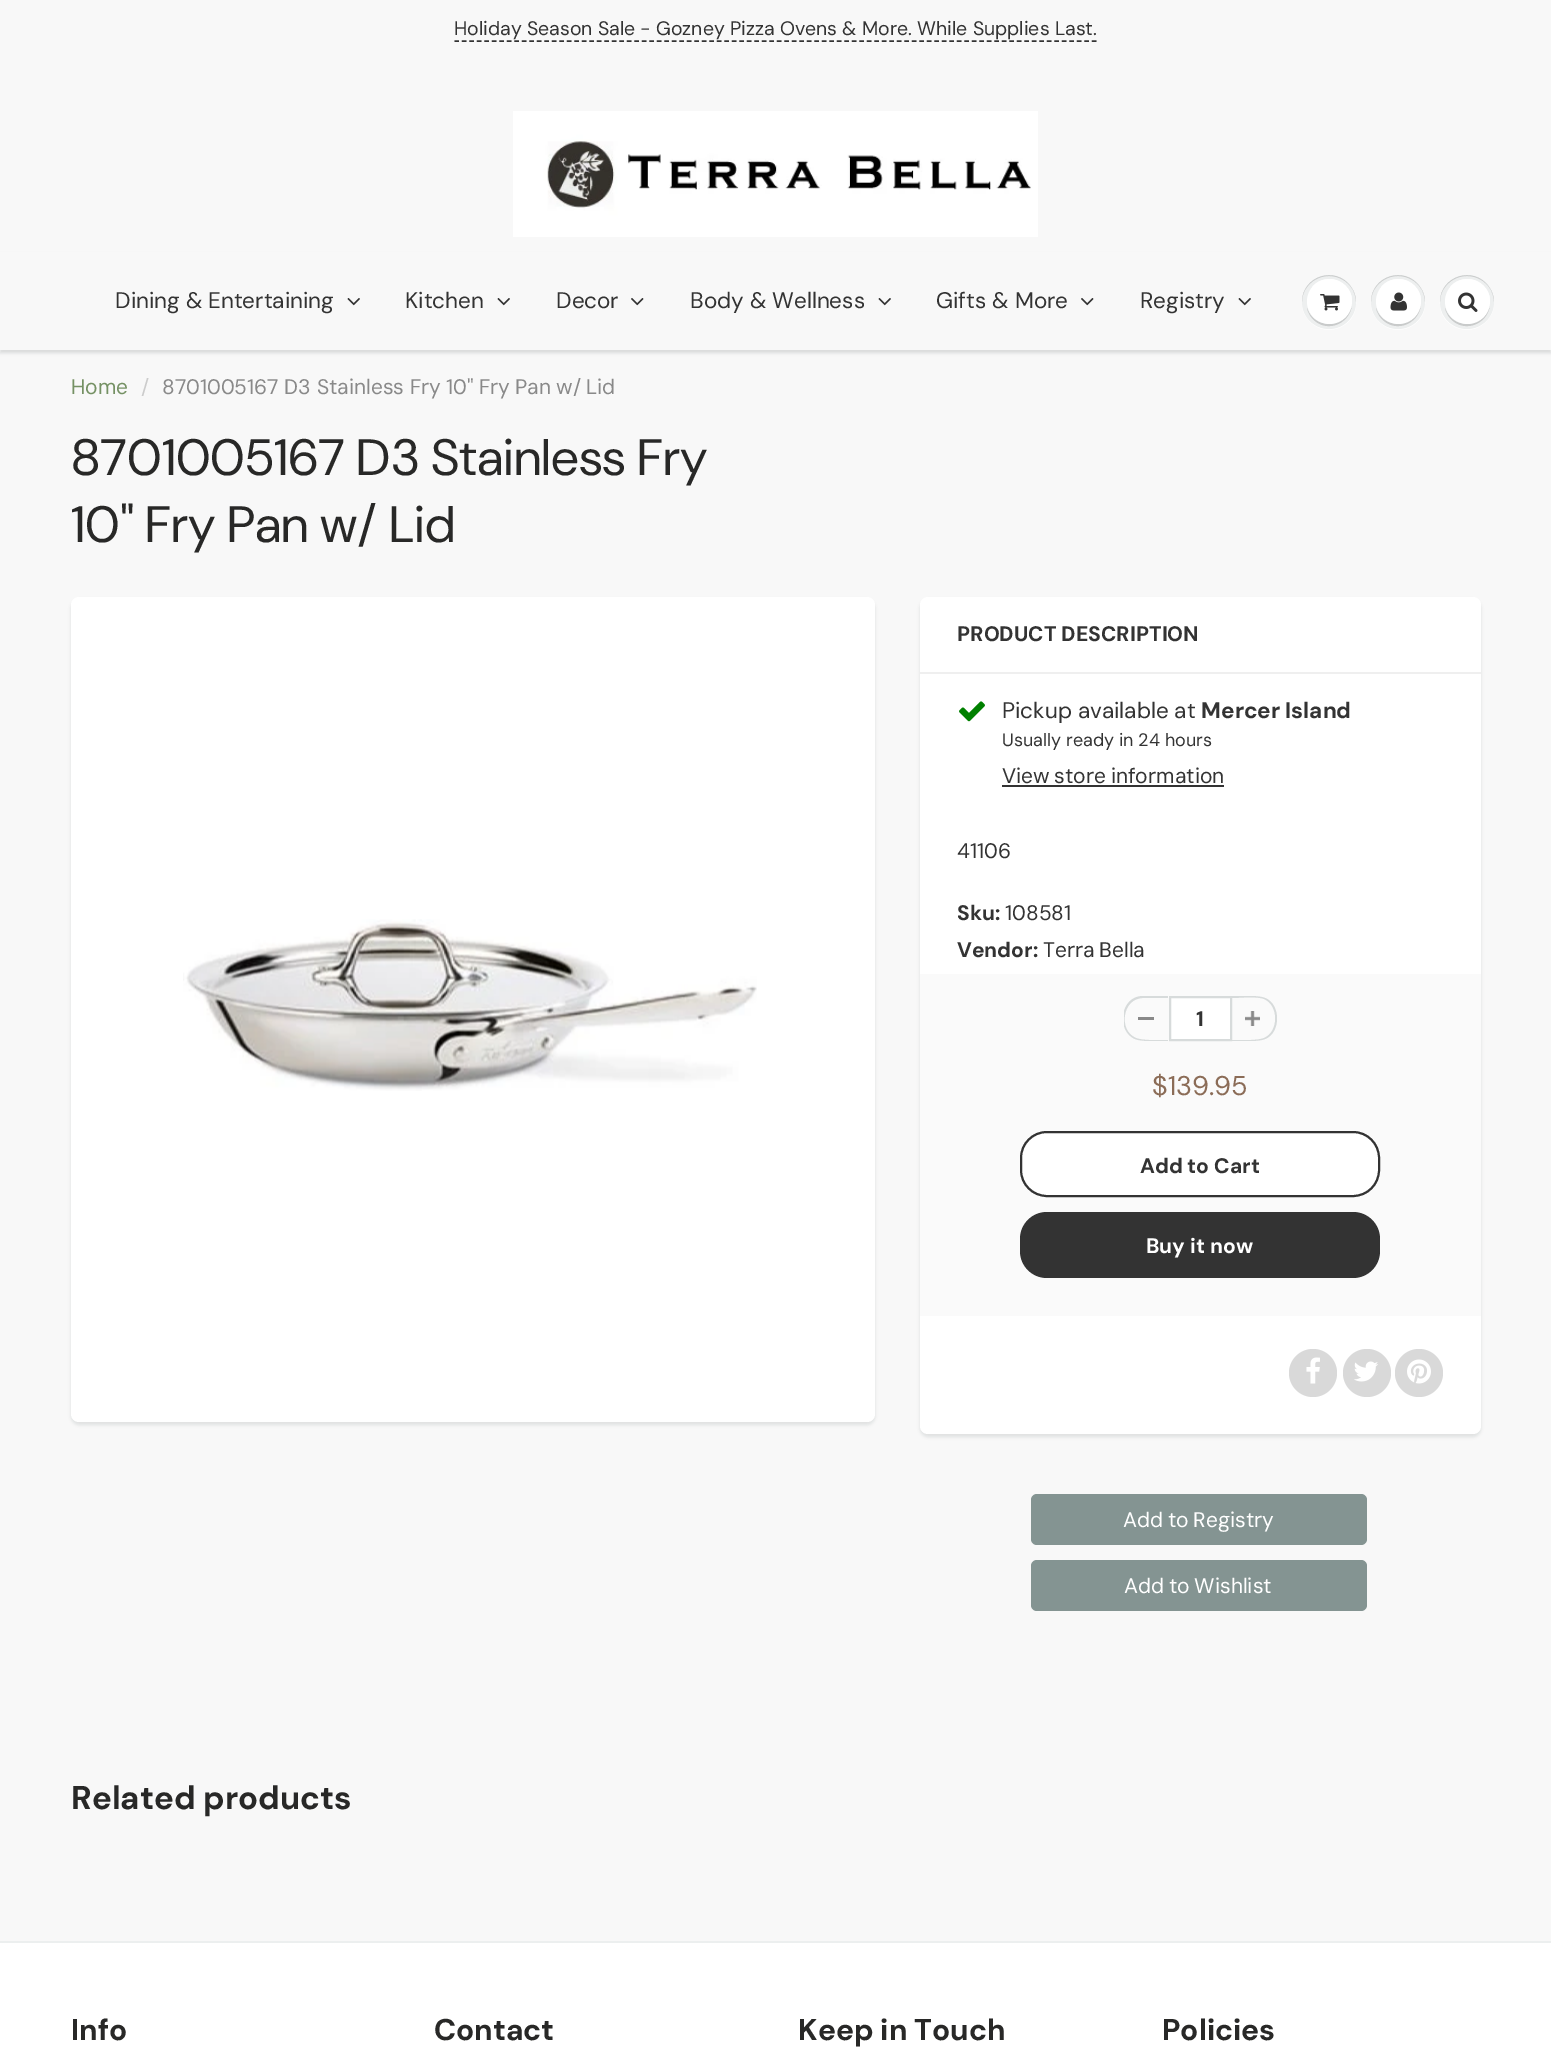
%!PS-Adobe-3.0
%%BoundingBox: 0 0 1551 2063
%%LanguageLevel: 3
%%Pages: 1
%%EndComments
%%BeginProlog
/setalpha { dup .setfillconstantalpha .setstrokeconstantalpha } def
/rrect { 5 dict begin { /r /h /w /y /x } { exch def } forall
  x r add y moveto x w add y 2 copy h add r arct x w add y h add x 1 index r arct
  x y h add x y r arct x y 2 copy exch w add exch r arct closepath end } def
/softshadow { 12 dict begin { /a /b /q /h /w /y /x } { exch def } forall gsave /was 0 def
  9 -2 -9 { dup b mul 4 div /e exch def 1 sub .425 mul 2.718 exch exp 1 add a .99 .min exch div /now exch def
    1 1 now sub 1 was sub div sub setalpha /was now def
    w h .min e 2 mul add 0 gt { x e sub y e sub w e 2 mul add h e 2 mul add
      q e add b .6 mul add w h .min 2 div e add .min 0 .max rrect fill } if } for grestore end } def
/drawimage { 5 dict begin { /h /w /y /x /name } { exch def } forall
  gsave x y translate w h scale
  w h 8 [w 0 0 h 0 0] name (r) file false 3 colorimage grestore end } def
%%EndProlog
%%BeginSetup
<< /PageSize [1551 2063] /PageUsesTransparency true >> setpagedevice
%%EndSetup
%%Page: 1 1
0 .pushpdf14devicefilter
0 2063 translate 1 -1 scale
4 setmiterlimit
1 setgray
0 0 1551 2063 rectfill
0.973 setgray
0 0 1551 252 rectfill
0.2 setgray
1.5 setlinewidth
[4.5 3] 0 setdash
newpath 454.5 41 moveto 1096.5 41 lineto stroke
(images/1.raw) 513 111 525 126 drawimage
0.973 setgray
0 350 1551 1591 rectfill
0.043 0.098 0.11 setrgbcolor
0 255 1551 98 0 1.5 0.12 softshadow
0.973 setgray
0 252 1551 98 rectfill
(images/2.raw) 347 298 13 8 drawimage
(images/2.raw) 497 298 13 8 drawimage
(images/3.raw) 631 298 13 8 drawimage
(images/2.raw) 878 298 13 8 drawimage
(images/3.raw) 1081 298 13 8 drawimage
(images/2.raw) 1238 298 13 8 drawimage
1 setgray
newpath 1356 302 moveto 1355 337 1303 337 1302 302 curveto 1302 308 1303 313 1307 318 curveto 1322 340 1357 329 1356 302 curveto closepath fill
0.929 0.937 0.937 setrgbcolor
newpath 1329 302 27 0 360 arc closepath fill
0.788 0.796 0.796 setrgbcolor
newpath 1329 276 moveto 1344 276 1356 288 1356 302 curveto 1356 297 1354 291 1351 287 curveto 1336 265 1302 276 1302 302 curveto 1302 288 1314 276 1329 276 curveto closepath fill
newpath 1307 308 moveto 1308 313 1311 318 1315 321 curveto 1332 335 1357 318 1351 297 curveto 1357 325 1316 335 1307 308 curveto closepath fill
1 setgray
newpath 1329.5 301.5 22.5 0 360 arc closepath fill
newpath 1329 280 moveto 1346 280 1354 295 1351 308 curveto 1358 285 1328 269 1312 287 curveto 1316 283 1322 280 1329 280 curveto closepath fill
(images/4.raw) 1320 294 20 17 drawimage
newpath 1425 302 moveto 1424 337 1372 337 1371 302 curveto 1371 308 1372 313 1376 318 curveto 1391 340 1426 329 1425 302 curveto closepath fill
0.929 0.937 0.937 setrgbcolor
newpath 1398 302 27 0 360 arc closepath fill
0.788 0.796 0.796 setrgbcolor
newpath 1398 276 moveto 1413 276 1425 288 1425 302 curveto 1425 297 1423 291 1420 287 curveto 1405 265 1371 276 1371 302 curveto 1371 288 1383 276 1398 276 curveto closepath fill
newpath 1376 308 moveto 1377 313 1380 318 1384 321 curveto 1401 335 1426 318 1420 297 curveto 1426 325 1385 335 1376 308 curveto closepath fill
1 setgray
newpath 1398.5 301.5 22.5 0 360 arc closepath fill
newpath 1398 280 moveto 1415 280 1423 295 1420 308 curveto 1427 285 1397 269 1381 287 curveto 1385 283 1391 280 1398 280 curveto closepath fill
(images/5.raw) 1390 292 17 19 drawimage
newpath 1494 302 moveto 1493 337 1441 337 1440 302 curveto 1439 329 1474 340 1489 318 curveto 1493 313 1494 308 1494 302 curveto closepath fill
0.929 0.937 0.937 setrgbcolor
newpath 1467 302 27 0 360 arc closepath fill
0.788 0.796 0.796 setrgbcolor
newpath 1467 276 moveto 1482 276 1494 288 1494 302 curveto 1494 297 1492 291 1489 287 curveto 1474 265 1440 276 1440 302 curveto 1440 288 1452 276 1467 276 curveto closepath fill
newpath 1445 308 moveto 1446 313 1449 318 1453 321 curveto 1470 335 1495 318 1489 297 curveto 1495 325 1454 335 1445 308 curveto closepath fill
1 setgray
newpath 1467.5 301.5 22.5 0 360 arc closepath fill
newpath 1467 280 moveto 1484 280 1492 295 1489 308 curveto 1496 285 1466 269 1450 287 curveto 1454 283 1460 280 1467 280 curveto closepath fill
(images/6.raw) 1458 292 20 20 drawimage
0.043 0.098 0.11 setrgbcolor
71 600 804 825 8 1.5 0.1 softshadow
1 setgray
71 597 804 825 8 rrect fill
(images/7.raw) 183 919 574 172 drawimage
0.043 0.098 0.11 setrgbcolor
920 600 561 837 8 1.5 0.1 softshadow
1 setgray
920 597 561 837 8 rrect fill
0.937 setgray
920 672 561 2 rectfill
(images/8.raw) 959 701 26 21 drawimage
0.2 setgray
1002 785 222 2 rectfill
0.98 setgray
920 974 561 342 rectfill
0.537 setgray
1138 1017 16 3 rectfill
gsave
1124 996 153 45 rectclip
0.843 0.859 0.859 setrgbcolor
newpath 1143 996 moveto 1168 996 lineto 1168 1041 lineto 1160 1041 1142 1042 1135 1039 curveto 1116 1031 1120 996 1143 996 curveto closepath 1143 998 moveto 1168 998 lineto 1168 1040 lineto 1161 1040 1143 1041 1136 1038 curveto 1118 1031 1122 998 1143 998 curveto closepath eofill
grestore
1 setgray
newpath 1170 997 moveto 1231 997 lineto 1231 1040 lineto 1170 1040 lineto closepath gsave fill grestore
0.843 0.859 0.859 setrgbcolor
2 setlinewidth
[] 0 setdash
stroke
(images/9.raw) 1245 1011 15 15 drawimage
gsave
1124 996 153 45 rectclip
newpath 1232 996 moveto 1240 996 1258 995 1265 998 curveto 1281 1004 1281 1033 1265 1039 curveto 1258 1042 1240 1041 1232 1041 curveto closepath 1232 998 moveto 1239 998 1257 996 1264 999 curveto 1279 1005 1279 1032 1264 1038 curveto 1257 1041 1239 1040 1232 1040 curveto closepath eofill
grestore
1 setgray
1021 1132 358 64 26 rrect gsave fill grestore
0.2 setgray
stroke
1020 1212 360 66 27 rrect fill
0.851 setgray
newpath 1313 1373 24 0 360 arc closepath fill
(images/10.raw) 1306 1357 14 27 drawimage
newpath 1367 1373 24 0 360 arc closepath fill
(images/11.raw) 1354 1361 24 21 drawimage
newpath 1419 1373 24 0 360 arc closepath fill
(images/12.raw) 1407 1359 24 25 drawimage
0.518 0.58 0.573 setrgbcolor
1031 1494 336 51 6 rrect fill
1031 1560 336 51 6 rrect fill
0.925 0.937 0.937 setrgbcolor
0 1941 1551 2 rectfill
/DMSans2-Regular [19.5 0 0 -19.5 0 0] selectfont
0.2 setgray
454 35 moveto (Holiday Season Sale - Gozney Pizza Ovens & More. While Supplies Last.) show
/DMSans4-Regular [22.5 0 0 -22.5 0 0] selectfont
115 308 moveto (Dining & Entertaining) show
405 308 moveto (Kitchen) show
556 308 moveto (Decor) show
690 308 moveto (Body & Wellness) show
936 308 moveto (Gifts & More) show
1140 308 moveto (Registry) show
/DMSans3-Regular [21 0 0 -21 0 0] selectfont
0.459 0.569 0.392 setrgbcolor
71 394 moveto (Home) show
0.8 setgray
141 394 moveto (/) show
0.537 setgray
162 394 moveto (8701005167 D3 Stainless Fry) show
446 394 moveto -0.5 0 32 (10" Fry Pan w/ Lid) widthshow
/DMSans-Regular [51 0 0 -51 0 0] selectfont
0.157 0.157 0.153 setrgbcolor
71 475 moveto (8701005167 D3 Stainless Fry) show
71 542 moveto (10" Fry Pan w/ Lid) show
/DMSans2-Bold [21 0 0 -21 0 0] selectfont
0.2 setgray
957 641 moveto (PRODUCT DESCRIPTION) show
/DMSans4-Regular [22.5 0 0 -22.5 0 0] selectfont
1002 718 moveto (Pickup available at) show
/DMSans3-Bold [22.5 0 0 -22.5 0 0] selectfont
1201 718 moveto (Mercer Island) show
/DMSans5-Regular [18 0 0 -18 0 0] selectfont
1002 746 moveto (Usually ready in 24 hours) show
/DMSans3-Regular [21 0 0 -21 0 0] selectfont
1002 783 moveto -1 0 32 (View store information) widthshow
957 858 moveto (41106) show
/DMSans4-Bold [21 0 0 -21 0 0] selectfont
957 920 moveto (Sku:) show
/DMSans3-Regular [21 0 0 -21 0 0] selectfont
1005 920 moveto (108581) show
/DMSans4-Bold [21 0 0 -21 0 0] selectfont
957 957 moveto (Vendor:) show
/DMSans3-Regular [21 0 0 -21 0 0] selectfont
1043 957 moveto -1 0 32 (Terra Bella) widthshow
/DMSans4-Bold [21 0 0 -21 0 0] selectfont
1196 1026 moveto (1) show
/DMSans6-Regular [27 0 0 -27 0 0] selectfont
0.545 0.424 0.341 setrgbcolor
1152 1095 moveto ($139.95) show
/DMSans4-Bold [21 0 0 -21 0 0] selectfont
0.2 setgray
1140 1173 moveto (Add to Cart) show
1 setgray
1146 1253 moveto (Buy it now) show
/DMSans3-Regular [21 0 0 -21 0 0] selectfont
1123 1527 moveto -1 0 32 (Add to Registry) widthshow
1124 1593 moveto -1 0 32 (Add to Wishlist) widthshow
/DMSans-Bold [33 0 0 -33 0 0] selectfont
0.157 0.157 0.153 setrgbcolor
71 1809 moveto (Related products) show
/DMSans5-Bold [30 0 0 -30 0 0] selectfont
71 2040 moveto (Info) show
434 2040 moveto (Contact) show
798 2040 moveto (Keep in Touch) show
1162 2040 moveto (Policies) show
.poppdf14devicefilter showpage
%%EOF
